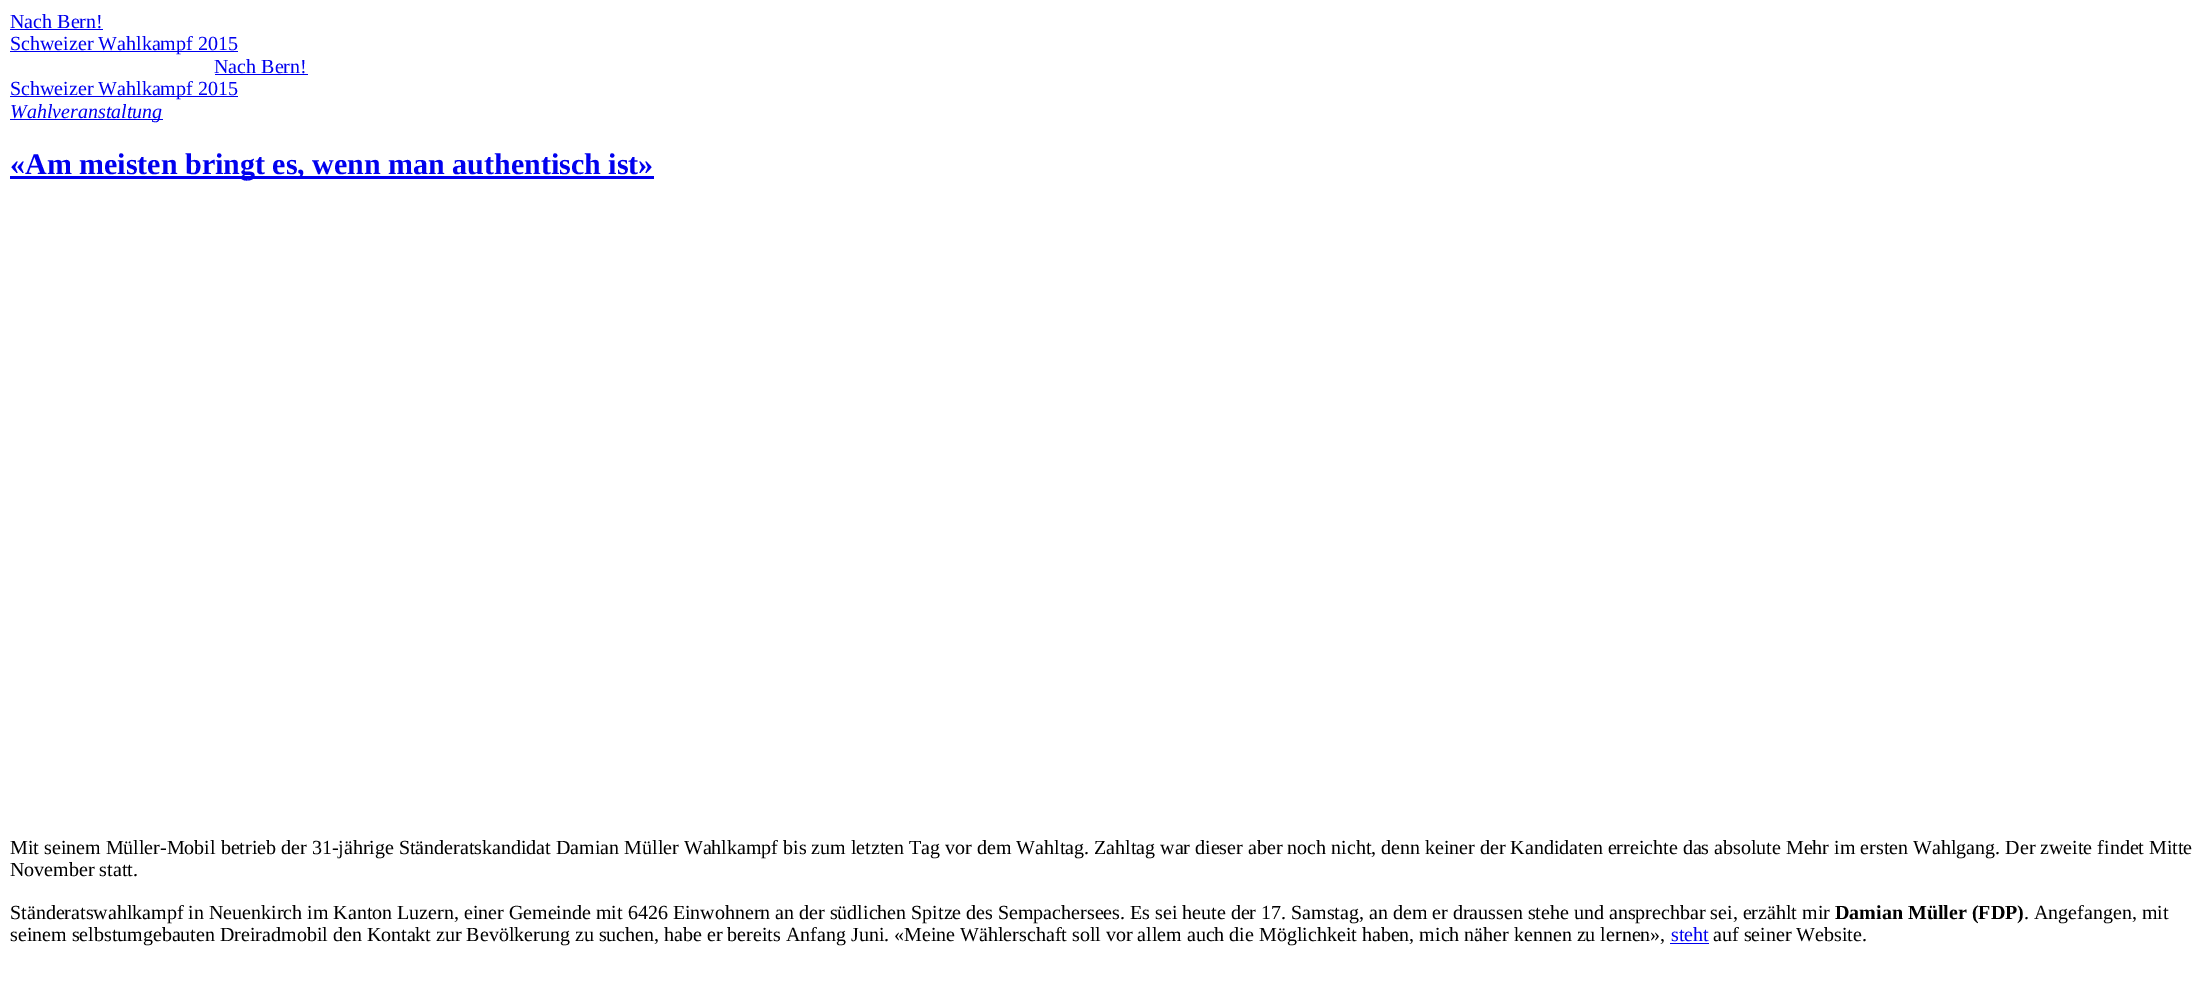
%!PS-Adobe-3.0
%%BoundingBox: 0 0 2207 982
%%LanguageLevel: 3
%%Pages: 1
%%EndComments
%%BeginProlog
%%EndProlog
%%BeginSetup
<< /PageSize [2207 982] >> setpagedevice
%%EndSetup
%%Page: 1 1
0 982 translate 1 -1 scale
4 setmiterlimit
1 setgray
0 0 2207 982 rectfill
0 0 0.933 setrgbcolor
10 29 93 1 rectfill
10 51 228 1 rectfill
215 74 93 1 rectfill
10 96 228 1 rectfill
10 119 153 1 rectfill
10 176 644 3 rectfill
1670 943 39 1 rectfill
/LiberationSerif-Regular [20 0 0 -20 0 0] selectfont
10 28 moveto (Nach Bern!) show
10 50 moveto (Schweizer Wahlkampf 2015) show
214 73 moveto (Nach Bern!) show
10 95 moveto (Schweizer Wahlkampf 2015) show
/LiberationSerif-Italic [20 0 0 -20 0 0] selectfont
10 118 moveto (Wahlveranstaltung) show
/LiberationSerif-Bold [30 0 0 -30 0 0] selectfont
10 174 moveto («Am meisten bringt es, wenn man authentisch ist») show
/LiberationSerif-Regular [20 0 0 -20 0 0] selectfont
0 setgray
10 854 moveto (Mit seinem Müller-Mobil betrieb der 31-jährige Ständeratskandidat Damian Müller Wahlkampf bis zum letzten Tag vor dem Wahltag. Zahltag war dieser aber noch nicht, denn keiner der Kandidaten erreichte das absolute Mehr im ersten Wahlgang. Der zweite findet Mitte) show
10 876 moveto (November statt.) show
10 919 moveto (Ständeratswahlkampf in Neuenkirch im Kanton Luzern, einer Gemeinde mit 6426 Einwohnern an der südlichen Spitze des Sempachersees. Es sei heute der 17. Samstag, an dem er draussen stehe und ansprechbar sei, erzählt mir) show
/LiberationSerif-Bold [20 0 0 -20 0 0] selectfont
1835 919 moveto (Damian Müller \(FDP\)) show
/LiberationSerif-Regular [20 0 0 -20 0 0] selectfont
2024 919 moveto (. Angefangen, mit) show
10 941 moveto (seinem selbstumgebauten Dreiradmobil den Kontakt zur Bevölkerung zu suchen, habe er bereits Anfang Juni. «Meine Wählerschaft soll vor allem auch die Möglichkeit haben, mich näher kennen zu lernen»,) show
0 0 0.933 setrgbcolor
1671 941 moveto (steht) show
0 setgray
1713 941 moveto (auf seiner Website.) show
showpage
%%EOF
